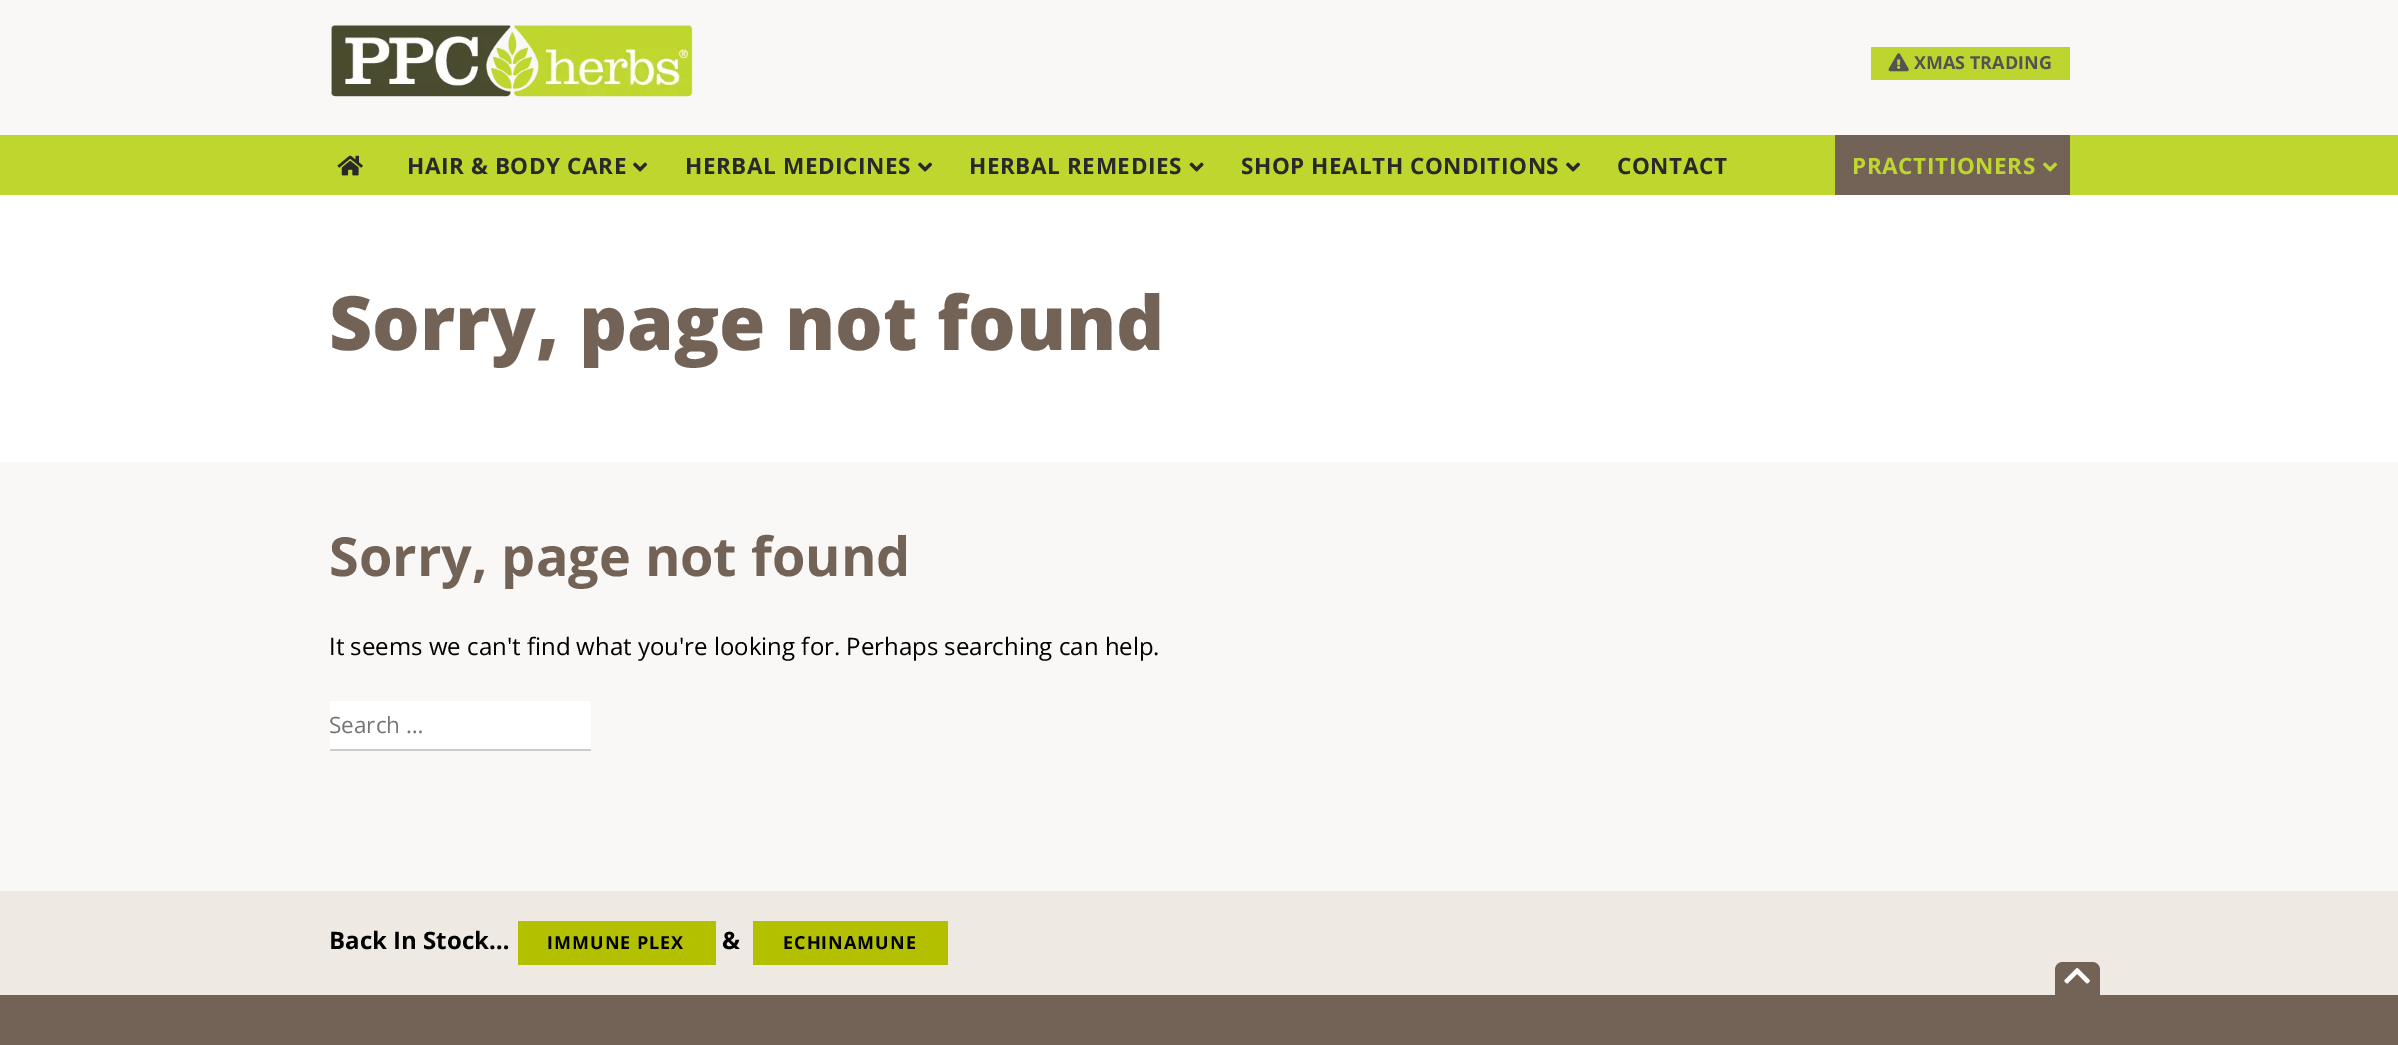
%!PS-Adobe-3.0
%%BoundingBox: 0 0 2398 1045
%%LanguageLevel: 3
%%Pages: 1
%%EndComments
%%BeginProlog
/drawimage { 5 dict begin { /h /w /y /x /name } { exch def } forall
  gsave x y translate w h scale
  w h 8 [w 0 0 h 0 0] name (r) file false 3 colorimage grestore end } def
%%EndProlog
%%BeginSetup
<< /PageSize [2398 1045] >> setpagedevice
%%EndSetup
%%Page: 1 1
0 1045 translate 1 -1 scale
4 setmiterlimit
0.98 0.973 0.965 setrgbcolor
0 0 2398 1045 rectfill
(images/1.raw) 331 25 362 72 drawimage
0.745 0.835 0.188 setrgbcolor
1871 47 199 33 rectfill
(images/2.raw) 1888 53 21 19 drawimage
0.749 0.839 0.184 setrgbcolor
0 135 2398 60 rectfill
(images/3.raw) 337 155 26 21 drawimage
(images/4.raw) 633 162 15 10 drawimage
(images/4.raw) 918 162 15 10 drawimage
(images/5.raw) 1189 162 15 10 drawimage
(images/4.raw) 1566 162 15 10 drawimage
0.451 0.388 0.341 setrgbcolor
1835 135 235 60 rectfill
(images/6.raw) 2043 162 15 10 drawimage
1 setgray
0 195 2398 267 rectfill
330 701 261 48 rectfill
0.8 setgray
330 749 261 2 rectfill
0.937 0.914 0.89 setrgbcolor
0 891 2398 104 rectfill
0.702 0.753 0 setrgbcolor
518 921 198 44 rectfill
753 921 195 44 rectfill
0.451 0.388 0.341 setrgbcolor
0 995 2398 50 rectfill
newpath 2063 962 moveto 2092 962 lineto 2096.5 962 2100 965.5 2100 970 curveto 2100 1004 lineto 2055 1004 lineto 2055 970 lineto 2055 965.5 2058.5 962 2063 962 curveto closepath fill
(images/7.raw) 2064 968 26 16 drawimage
/OpenSans-Bold [18 0 0 -18 0 0] selectfont
0.322 0.325 0.322 setrgbcolor
1914 69 moveto (XMAS TRADING) show
/OpenSans-Bold [22.5 0 0 -22.5 0 0] selectfont
0.161 setgray
407 174 moveto 0.6 0 (HAIR & BODY CARE) ashow
685 174 moveto 0.6 0 (HERBAL MEDICINES) ashow
969 174 moveto 0.6 0 (HERBAL REMEDIES) ashow
1241 174 moveto 0.6 0 (SHOP HEALTH CONDITIONS) ashow
1617 174 moveto 0.6 0 (CONTACT) ashow
0.749 0.839 0.184 setrgbcolor
1852 174 moveto 0.6 0 (PRACTITIONERS) ashow
/OpenSans-ExtraBold [75 0 0 -75 0 0] selectfont
0.451 0.388 0.341 setrgbcolor
329 350 moveto (Sorry, page not found) show
/OpenSans-Bold [54 0 0 -54 0 0] selectfont
329 576 moveto (Sorry, page not found) show
/OpenSans-Regular [24 0 0 -24 0 0] selectfont
0 setgray
329 655 moveto (It seems we can't find what you're looking for. Perhaps searching can help.) show
/OpenSans-Regular [22.5 0 0 -22.5 0 0] selectfont
0.459 setgray
329 733 moveto (Search …) show
/OpenSans-Bold [24 0 0 -24 0 0] selectfont
0 setgray
329 949 moveto (Back In Stock…) show
/OpenSans-Bold [18 0 0 -18 0 0] selectfont
547 949 moveto 1 0 (IMMUNE PLEX) ashow
/OpenSans-Bold [24 0 0 -24 0 0] selectfont
722 949 moveto (&) show
/OpenSans-Bold [18 0 0 -18 0 0] selectfont
783 949 moveto 1 0 (ECHINAMUNE) ashow
showpage
%%EOF
